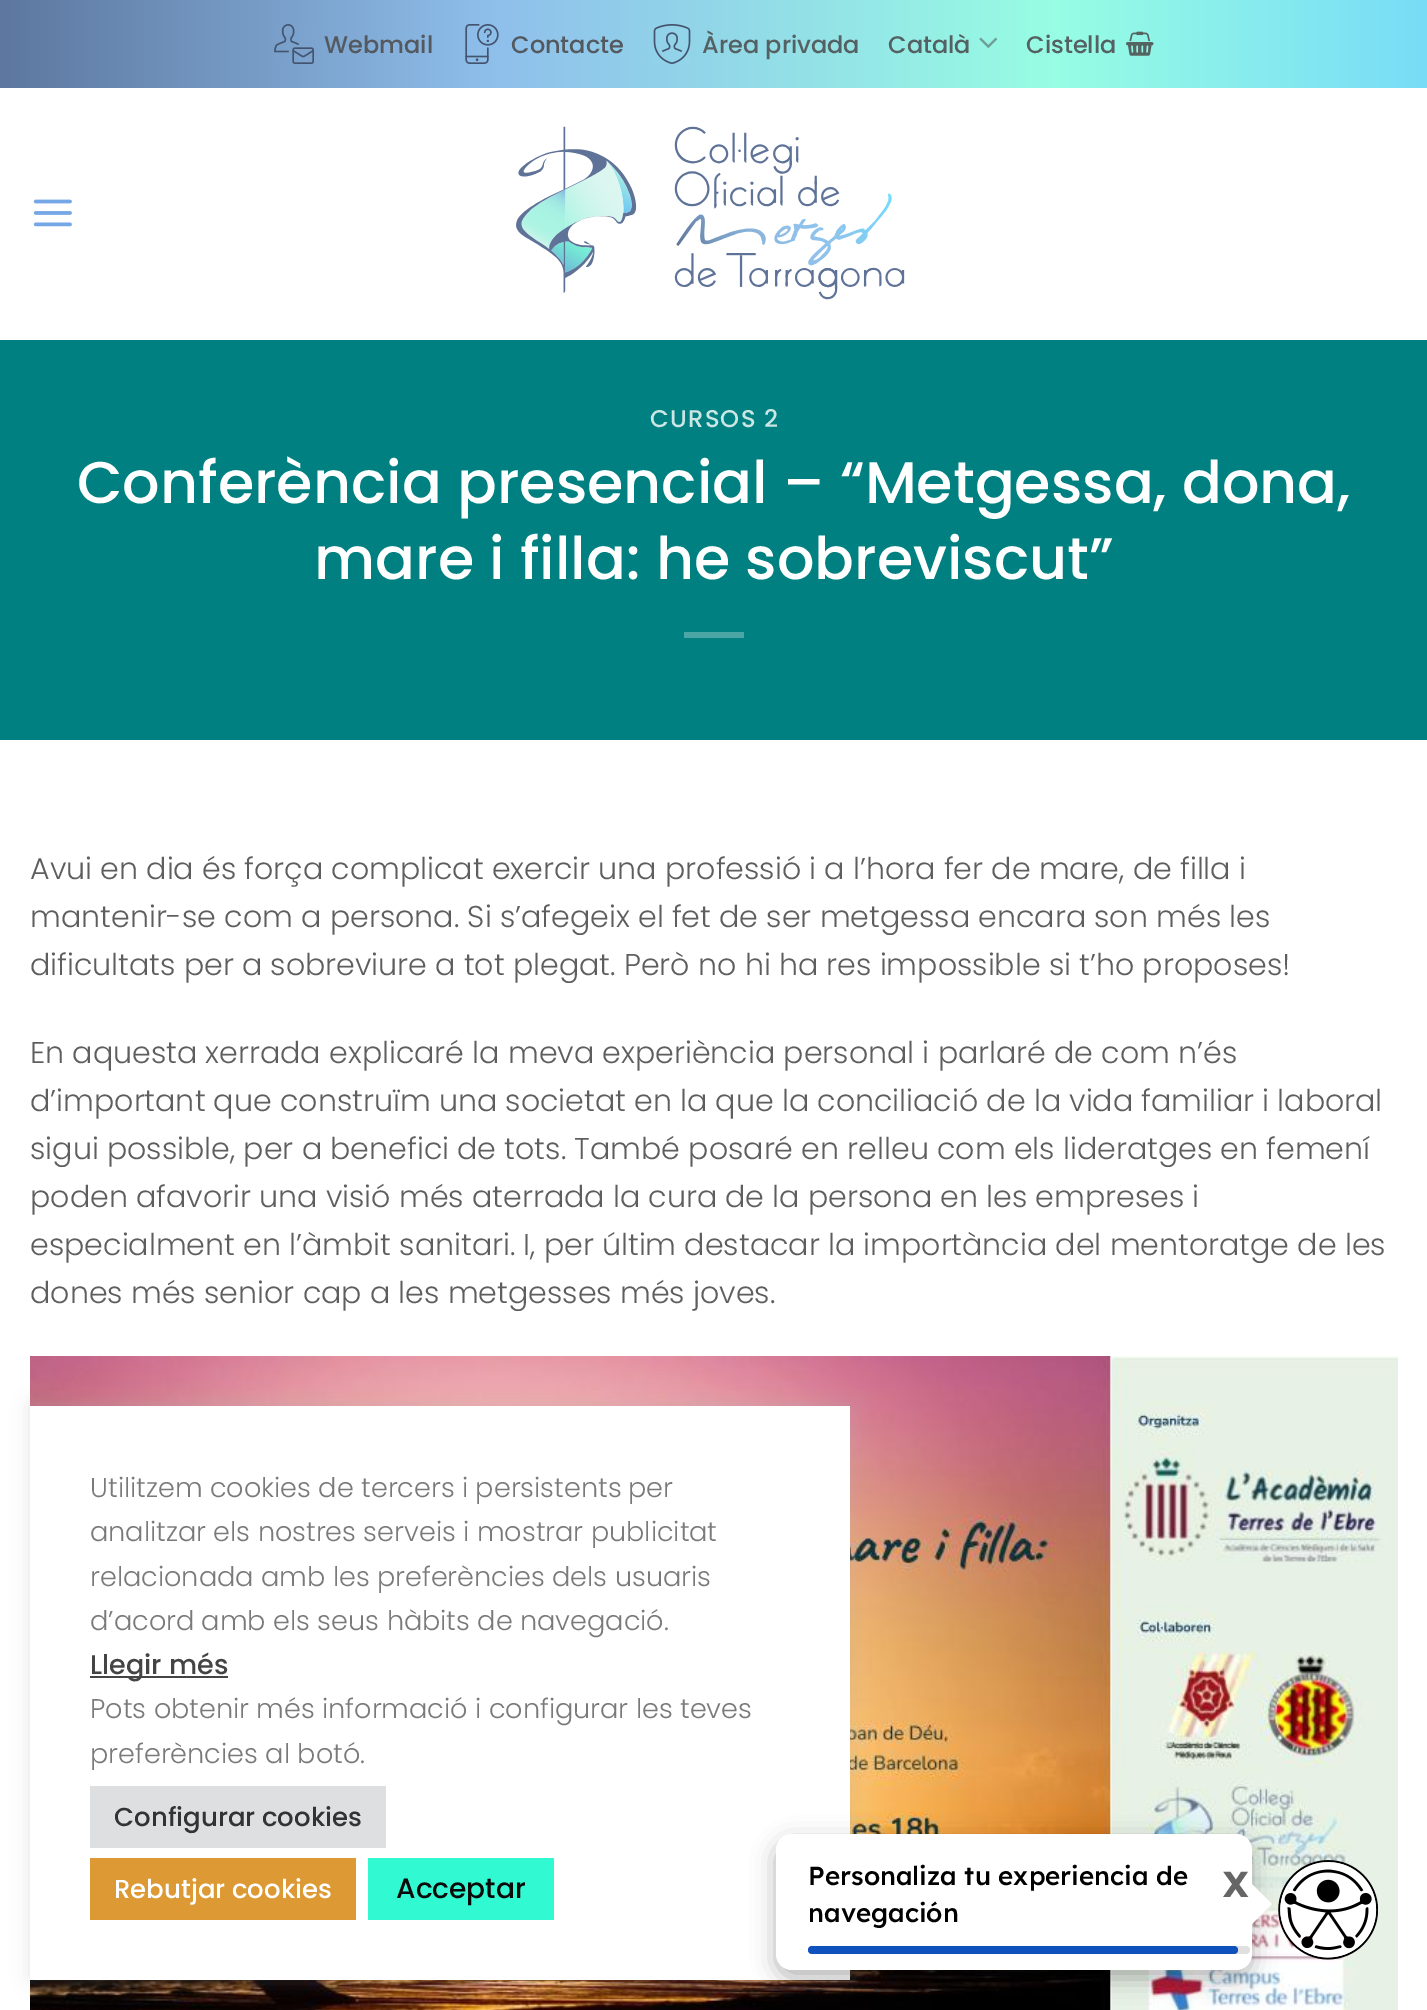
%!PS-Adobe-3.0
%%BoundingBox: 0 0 1427 2010
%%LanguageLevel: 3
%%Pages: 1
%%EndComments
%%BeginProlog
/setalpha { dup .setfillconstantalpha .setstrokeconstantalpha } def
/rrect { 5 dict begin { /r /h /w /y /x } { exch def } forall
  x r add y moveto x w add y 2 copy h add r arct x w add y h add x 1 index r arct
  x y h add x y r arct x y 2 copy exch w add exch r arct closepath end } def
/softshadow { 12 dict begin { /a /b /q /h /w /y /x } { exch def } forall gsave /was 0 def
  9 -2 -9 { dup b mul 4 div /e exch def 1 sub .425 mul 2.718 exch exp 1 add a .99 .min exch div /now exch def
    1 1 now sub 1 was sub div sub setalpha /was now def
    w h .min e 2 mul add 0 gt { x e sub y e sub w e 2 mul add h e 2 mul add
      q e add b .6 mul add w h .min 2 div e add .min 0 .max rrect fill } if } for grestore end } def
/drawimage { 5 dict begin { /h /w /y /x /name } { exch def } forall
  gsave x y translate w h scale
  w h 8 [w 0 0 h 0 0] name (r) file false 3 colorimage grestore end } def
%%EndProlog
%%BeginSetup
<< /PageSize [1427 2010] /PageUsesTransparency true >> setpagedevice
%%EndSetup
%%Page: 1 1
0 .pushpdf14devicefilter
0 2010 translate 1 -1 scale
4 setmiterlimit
1 setgray
0 0 1427 2010 rectfill
gsave newpath 0 0 moveto 1427 0 lineto 1427 88 lineto 0 88 lineto closepath clip newpath
<< /ShadingType 2 /ColorSpace /DeviceRGB /Coords [0 44 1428 44] /Extend [true true] /Function << /FunctionType 3 /Domain [0 1] /Functions [<< /FunctionType 2 /Domain [0 1] /C0 [0.365 0.467 0.624] /C1 [0.561 0.753 0.925] /N 1 >> << /FunctionType 2 /Domain [0 1] /C0 [0.561 0.753 0.925] /C1 [0.592 0.992 0.89] /N 1 >> << /FunctionType 2 /Domain [0 1] /C0 [0.592 0.992 0.89] /C1 [0.475 0.863 0.969] /N 1 >>] /Bounds [0.35 0.74] /Encode [0 1 0 1 0 1] >> >> shfill grestore
(images/1.raw) 274 24 40 40 drawimage
(images/2.raw) 465 24 34 40 drawimage
(images/3.raw) 653 24 38 40 drawimage
(images/4.raw) 979 37 19 11 drawimage
(images/5.raw) 1126 31 28 25 drawimage
(images/6.raw) 33 199 39 28 drawimage
(images/7.raw) 516 126 389 174 drawimage
0 0.502 0.502 setrgbcolor
0 340 1427 400 rectfill
0.302 0.651 0.651 setrgbcolor
684 632 60 6 rectfill
(images/8.raw) 30 1356 1368 654 drawimage
0.675 0.671 0.671 setrgbcolor
30 1404 820 574 0 10 0.3 softshadow
1 setgray
30 1406 820 574 rectfill
0.267 setgray
90 1676 138 2 rectfill
0.871 0.875 0.878 setrgbcolor
90 1786 296 62 rectfill
0.867 0.6 0.2 setrgbcolor
90 1858 266 62 rectfill
0.192 0.976 0.82 setrgbcolor
368 1858 186 62 rectfill
0 setgray
776 1842 476 136 16 12 0.3 softshadow
1 setgray
776 1834 476 136 16 rrect fill
newpath 1252 1924 moveto 1252 1884 lineto 1272 1904 lineto closepath fill
0.878 setgray
808 1946 442 8 4 rrect fill
0.059 0.322 0.741 setrgbcolor
808 1946 430 8 4 rrect fill
(images/9.raw) 1278 1860 100 100 drawimage
/Poppins-Medium [24 0 0 -24 0 0] selectfont
0.325 0.349 0.373 setrgbcolor
324 53 moveto (Webmail) show
511 53 moveto (Contacte) show
0.333 0.376 0.384 setrgbcolor
702 53 moveto (Àrea privada) show
888 53 moveto (Català) show
1026 53 moveto (Cistella) show
/Poppins-Medium [24.25 0 0 -24.25 0 0] selectfont
0.8 0.902 0.902 setrgbcolor
650 427 moveto 1.25 0 (CURSOS 2) ashow
/Poppins-Medium [58.8 0 0 -58.8 0 0] selectfont
1 setgray
77 503 moveto (Conferència presencial – “Metgessa, dona,) show
314 579 moveto (mare i filla: he sobreviscut”) show
/Poppins-Light [30.1 0 0 -30.1 0 0] selectfont
0.369 setgray
30 879 moveto (Avui en dia és força complicat exercir una professió i a l’hora fer de mare, de filla i) show
30 927 moveto (mantenir-se com a persona. Si s’afegeix el fet de ser metgessa encara son més les) show
30 975 moveto (dificultats per a sobreviure a tot plegat. Però no hi ha res impossible si t’ho proposes!) show
30 1063 moveto (En aquesta xerrada explicaré la meva experiència personal i parlaré de com n’és) show
30 1111 moveto (d’important que construïm una societat en la que la conciliació de la vida familiar i laboral) show
30 1159 moveto (sigui possible, per a benefici de tots. També posaré en relleu com els lideratges en femení) show
30 1207 moveto (poden afavorir una visió més aterrada la cura de la persona en les empreses i) show
30 1255 moveto (especialment en l’àmbit sanitari. I, per últim destacar la importància del mentoratge de les) show
30 1303 moveto (dones més senior cap a les metgesses més joves.) show
/Poppins-Light [27.1 0 0 -27.1 0 0] selectfont
0.478 setgray
90 1497 moveto (Utilitzem cookies de tercers i persistents) show
628 1497 moveto (per) show
90 1541 moveto (analitzar els nostres serveis i mostrar publicitat) show
90 1586 moveto (relacionada amb les preferències dels usuaris) show
90 1630 moveto (d’acord amb els seus hàbits de navegació.) show
/Poppins-Medium [27.1 0 0 -27.1 0 0] selectfont
0.267 setgray
90 1674 moveto (Llegir més) show
/Poppins-Light [27.1 0 0 -27.1 0 0] selectfont
0.478 setgray
90 1718 moveto (Pots obtenir més informació i configurar les teves) show
90 1763 moveto (preferències al botó.) show
/Poppins-Medium [26 0 0 -26 0 0] selectfont
0.2 setgray
114 1826 moveto (Configurar cookies) show
1 setgray
114 1898 moveto (Rebutjar cookies) show
/Poppins-Medium [28 0 0 -28 0 0] selectfont
0.039 setgray
396 1898 moveto (Acceptar) show
/Lexend-Medium [26 0 0 -26 0 0] selectfont
0 setgray
808 1885 moveto (Personaliza tu experiencia de) show
/Lexend-Bold [36 0 0 -36 0 0] selectfont
0.4 setgray
1223 1897 moveto (X) show
/Lexend-Medium [26 0 0 -26 0 0] selectfont
0 setgray
808 1922 moveto (navegación) show
.poppdf14devicefilter showpage
%%EOF
